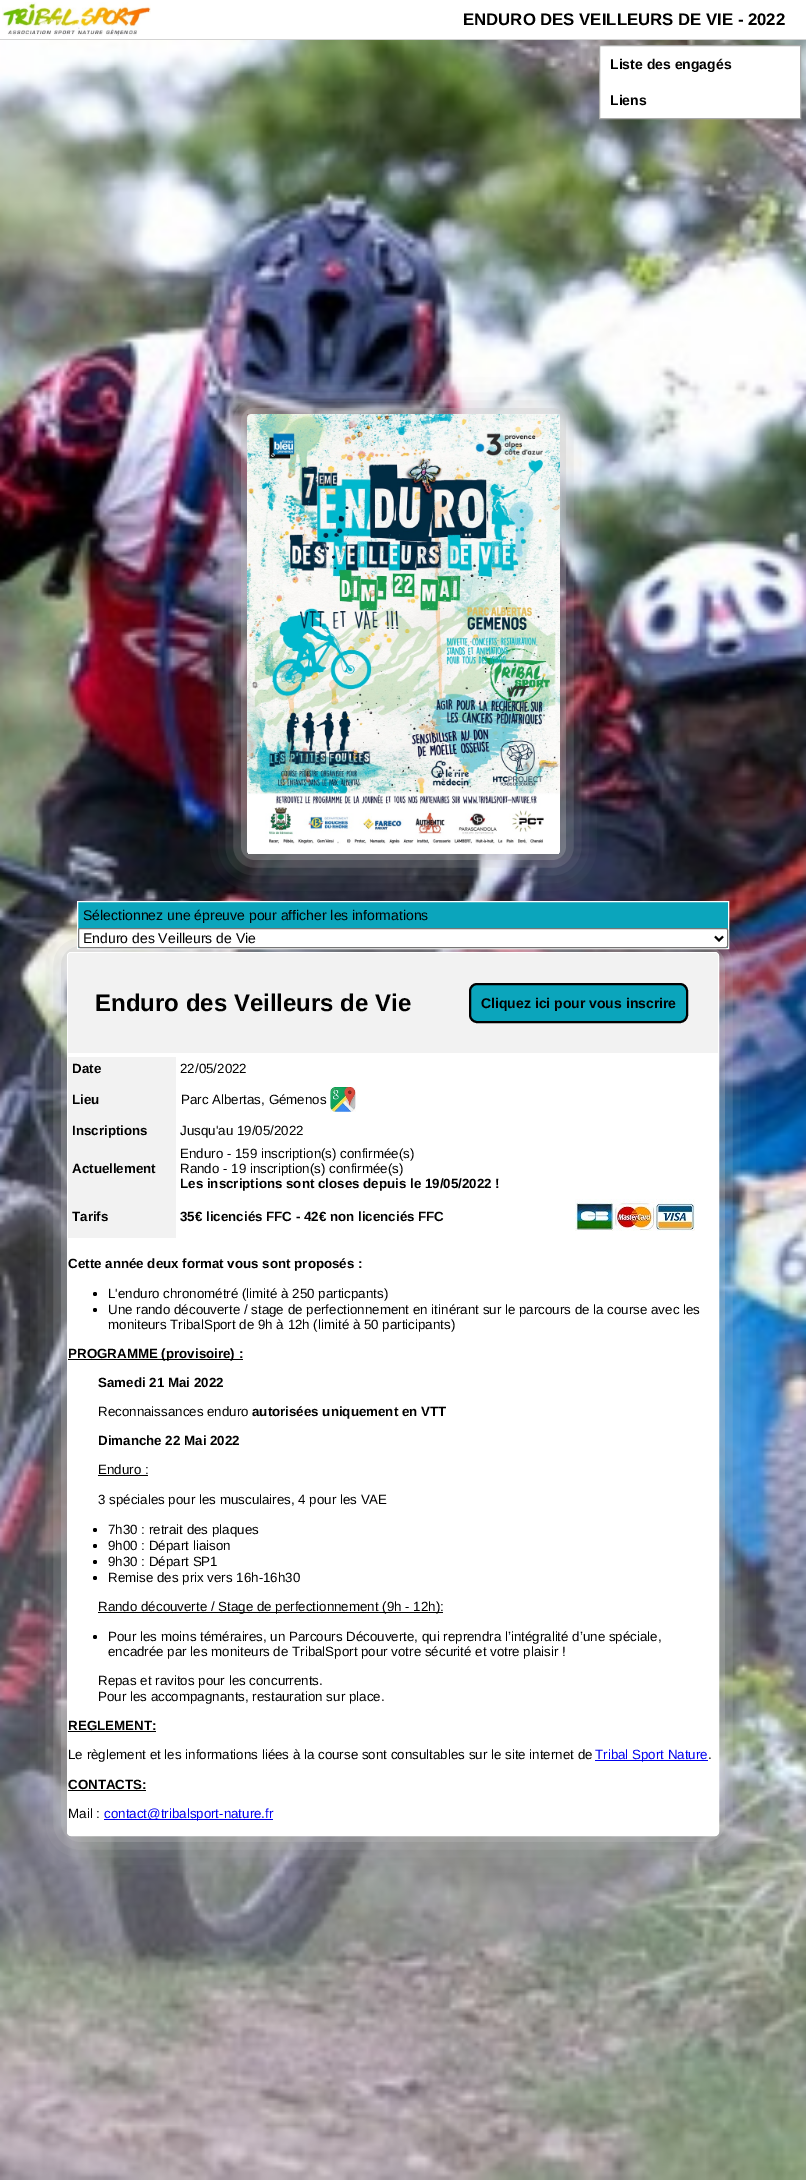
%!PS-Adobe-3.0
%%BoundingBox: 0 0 806 2180
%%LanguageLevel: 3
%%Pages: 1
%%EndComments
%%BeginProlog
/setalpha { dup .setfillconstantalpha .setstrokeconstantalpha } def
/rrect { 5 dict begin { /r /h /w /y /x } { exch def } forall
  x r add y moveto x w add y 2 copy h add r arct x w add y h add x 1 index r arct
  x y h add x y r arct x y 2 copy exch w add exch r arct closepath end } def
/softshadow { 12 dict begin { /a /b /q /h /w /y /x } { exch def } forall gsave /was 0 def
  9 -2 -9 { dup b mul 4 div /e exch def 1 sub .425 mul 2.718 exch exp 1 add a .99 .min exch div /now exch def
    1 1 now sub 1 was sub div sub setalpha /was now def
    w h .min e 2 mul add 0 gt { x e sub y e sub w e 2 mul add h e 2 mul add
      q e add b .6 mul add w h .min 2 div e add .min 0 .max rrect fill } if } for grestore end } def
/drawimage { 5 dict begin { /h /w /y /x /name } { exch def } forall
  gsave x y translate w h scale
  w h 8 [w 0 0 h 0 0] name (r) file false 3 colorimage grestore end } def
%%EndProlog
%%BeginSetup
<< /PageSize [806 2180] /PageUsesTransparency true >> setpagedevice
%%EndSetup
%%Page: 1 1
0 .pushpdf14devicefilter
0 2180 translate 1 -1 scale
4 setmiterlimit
1 setgray
0 0 806 2180 rectfill
(images/1.raw) 0 40 806 2140 drawimage
0.827 setgray
0 39 806 1 rectfill
(images/2.raw) 2 2 149 34 drawimage
1 setgray
newpath 599.5 45.5 moveto 800.5 45.5 lineto 800.5 118.5 lineto 599.5 118.5 lineto closepath gsave fill grestore
0.667 setgray
stroke
0.753 setgray
65 950 656 888 6 15.5 1 softshadow
0.043 0.647 0.737 setrgbcolor
newpath 77.5 901.5 moveto 728.5 901.5 lineto 728.5 948.5 lineto 77.5 948.5 lineto closepath gsave fill grestore
1 setgray
stroke
0.753 setgray
245 412 317 444 0 15.5 1 softshadow
(images/3.raw) 247 414 313 440 drawimage
1 setgray
78.5 928.5 649 19 1.5 rrect gsave fill grestore
0.463 setgray
stroke
0 setgray
2 setlinewidth
newpath 715 936.5 moveto 719 940.5 lineto 723 936.5 lineto stroke
1 setgray
67.5 952.5 651 883 3.5 rrect gsave fill grestore
1 setlinewidth
stroke
0.949 setgray
newpath 71 953 moveto 439 953 lineto 439 1053 lineto 68 1053 lineto 68 956 lineto 68 954.5 69.5 953 71 953 curveto closepath fill
newpath 439 953 moveto 715 953 lineto 716.5 953 718 954.5 718 956 curveto 718 1053 lineto 439 1053 lineto closepath fill
0.043 0.647 0.737 setrgbcolor
470 984 217 38 7 rrect gsave fill grestore
0 setgray
2 setlinewidth
stroke
0.949 setgray
68 1057 108 181 rectfill
(images/4.raw) 330 1087 26 25 drawimage
(images/5.raw) 575 1199 120 32 drawimage
0 setgray
newpath 95 1294 2 0 360 arc closepath fill
newpath 95 1310 2 0 360 arc closepath fill
68 1359 175 1 rectfill
98 1475 50 1 rectfill
newpath 95 1530 2 0 360 arc closepath fill
newpath 95 1546 2 0 360 arc closepath fill
newpath 95 1562 2 0 360 arc closepath fill
newpath 95 1578 2 0 360 arc closepath fill
98 1612 345 1 rectfill
newpath 95 1637 2 0 360 arc closepath fill
68 1731 88 1 rectfill
0 0 0.933 setrgbcolor
595 1760 113 1 rectfill
0 setgray
68 1790 78 1 rectfill
0 0 0.933 setrgbcolor
104 1819 169 1 rectfill
/LiberationSans-Bold [16.75 0 0 -16.75 0 0] selectfont
0 setgray
463 25 moveto (ENDURO DES VEILLEURS DE VIE - 2022) show
/LiberationSans-Bold [14 0 0 -14 0 0] selectfont
610 69 moveto (Liste des engagés) show
610 105 moveto (Liens) show
/LiberationSans-Regular [14 0 0 -14 0 0] selectfont
83 920 moveto (Sélectionnez une épreuve pour afficher les informations) show
83 943 moveto (Enduro des Veilleurs de Vie) show
/LiberationSans-Bold [24 0 0 -24 0 0] selectfont
95 1011 moveto (Enduro des Veilleurs de Vie) show
/LiberationSans-Bold [14 0 0 -14 0 0] selectfont
481 1008 moveto (Cliquez ici pour vous inscrire) show
/LiberationSans-Bold [13.35 0 0 -13.35 0 0] selectfont
72 1073 moveto (Date) show
/LiberationSans-Regular [13.35 0 0 -13.35 0 0] selectfont
180 1073 moveto (22/05/2022) show
/LiberationSans-Bold [13.35 0 0 -13.35 0 0] selectfont
72 1104 moveto (Lieu) show
/LiberationSans-Regular [13.35 0 0 -13.35 0 0] selectfont
181 1104 moveto (Parc Albertas, Gémenos) show
/LiberationSans-Bold [13.35 0 0 -13.35 0 0] selectfont
72 1135 moveto (Inscriptions) show
/LiberationSans-Regular [13.35 0 0 -13.35 0 0] selectfont
180 1135 moveto (Jusqu'au 19/05/2022) show
/LiberationSans-Bold [13.35 0 0 -13.35 0 0] selectfont
72 1173 moveto (Actuellement) show
/LiberationSans-Regular [13.35 0 0 -13.35 0 0] selectfont
180 1158 moveto (Enduro - 159 inscription\(s\) confirmée\(s\)) show
180 1173 moveto (Rando - 19 inscription\(s\) confirmée\(s\)) show
/LiberationSans-Bold [13.35 0 0 -13.35 0 0] selectfont
180 1188 moveto (Les inscriptions sont closes depuis le 19/05/2022 !) show
72 1221 moveto (Tarifs) show
180 1221 moveto (35€ licenciés FFC - 42€ non licenciés FFC) show
68 1268 moveto (Cette année deux format vous sont proposés :) show
/LiberationSans-Regular [13.35 0 0 -13.35 0 0] selectfont
108 1298 moveto (L'enduro chronométré \(limité à 250 particpants\)) show
108 1314 moveto (Une rando découverte / stage de perfectionnement en itinérant sur le parcours de la course avec les) show
108 1329 moveto (moniteurs TribalSport de 9h à 12h \(limité à 50 participants\)) show
/LiberationSans-Bold [13.35 0 0 -13.35 0 0] selectfont
68 1358 moveto (PROGRAMME \(provisoire\) :) show
98 1387 moveto (Samedi 21 Mai 2022) show
/LiberationSans-Regular [13.35 0 0 -13.35 0 0] selectfont
98 1416 moveto (Reconnaissances enduro) show
/LiberationSans-Bold [13.35 0 0 -13.35 0 0] selectfont
252 1416 moveto (autorisées uniquement en VTT) show
98 1445 moveto (Dimanche 22 Mai 2022) show
/LiberationSans-Regular [13.35 0 0 -13.35 0 0] selectfont
98 1474 moveto (Enduro :) show
98 1504 moveto (3 spéciales pour les musculaires, 4 pour les VAE) show
108 1534 moveto (7h30 : retrait des plaques) show
108 1550 moveto (9h00 : Départ liaison) show
108 1566 moveto (9h30 : Départ SP1) show
108 1582 moveto (Remise des prix vers 16h-16h30) show
98 1611 moveto (Rando découverte / Stage de perfectionnement \(9h - 12h\):) show
108 1641 moveto (Pour les moins téméraires, un Parcours Découverte, qui reprendra l’intégralité d’une spéciale,) show
108 1656 moveto (encadrée par les moniteurs de TribalSport pour votre sécurité et votre plaisir !) show
98 1685 moveto (Repas et ravitos pour les concurrents.) show
98 1701 moveto (Pour les accompagnants, restauration sur place.) show
/LiberationSans-Bold [13.35 0 0 -13.35 0 0] selectfont
68 1730 moveto (REGLEMENT:) show
/LiberationSans-Regular [13.35 0 0 -13.35 0 0] selectfont
68 1759 moveto (Le règlement et les informations liées à la course sont consultables sur le site internet de) show
0 0 0.933 setrgbcolor
595 1759 moveto (Tribal Sport Nature) show
0 setgray
708 1759 moveto (.) show
/LiberationSans-Bold [13.35 0 0 -13.35 0 0] selectfont
68 1789 moveto (CONTACTS:) show
/LiberationSans-Regular [13.35 0 0 -13.35 0 0] selectfont
68 1818 moveto (Mail :) show
0 0 0.933 setrgbcolor
104 1818 moveto (contact@tribalsport-nature.fr) show
.poppdf14devicefilter showpage
%%EOF
